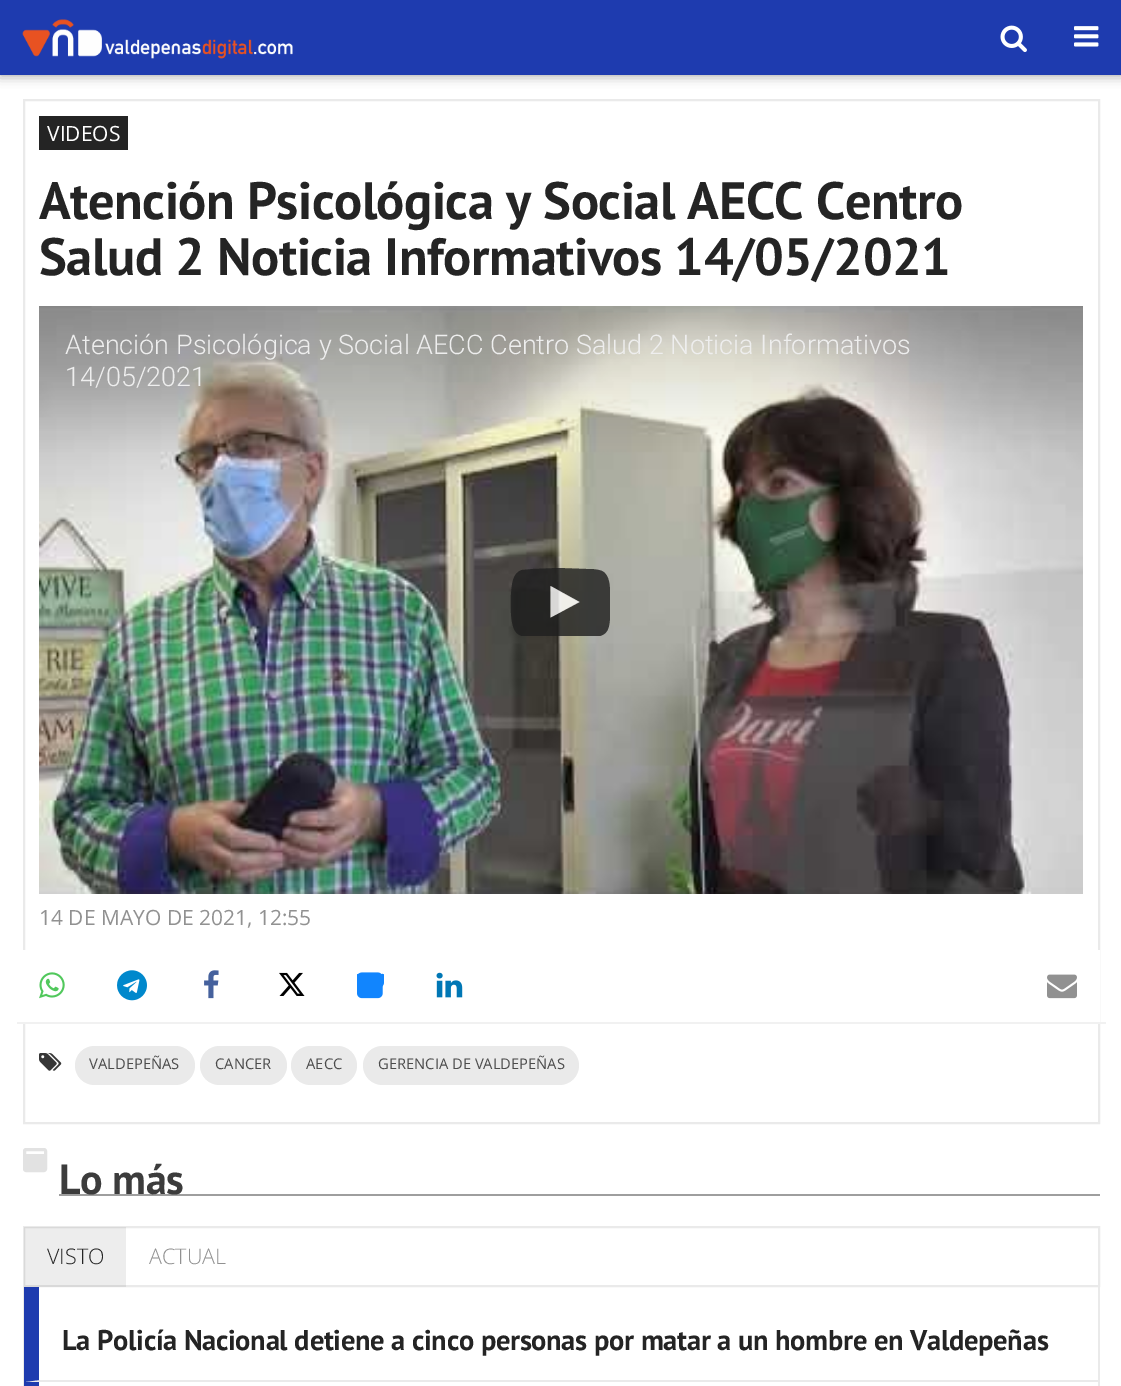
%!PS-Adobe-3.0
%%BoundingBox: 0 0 1121 1386
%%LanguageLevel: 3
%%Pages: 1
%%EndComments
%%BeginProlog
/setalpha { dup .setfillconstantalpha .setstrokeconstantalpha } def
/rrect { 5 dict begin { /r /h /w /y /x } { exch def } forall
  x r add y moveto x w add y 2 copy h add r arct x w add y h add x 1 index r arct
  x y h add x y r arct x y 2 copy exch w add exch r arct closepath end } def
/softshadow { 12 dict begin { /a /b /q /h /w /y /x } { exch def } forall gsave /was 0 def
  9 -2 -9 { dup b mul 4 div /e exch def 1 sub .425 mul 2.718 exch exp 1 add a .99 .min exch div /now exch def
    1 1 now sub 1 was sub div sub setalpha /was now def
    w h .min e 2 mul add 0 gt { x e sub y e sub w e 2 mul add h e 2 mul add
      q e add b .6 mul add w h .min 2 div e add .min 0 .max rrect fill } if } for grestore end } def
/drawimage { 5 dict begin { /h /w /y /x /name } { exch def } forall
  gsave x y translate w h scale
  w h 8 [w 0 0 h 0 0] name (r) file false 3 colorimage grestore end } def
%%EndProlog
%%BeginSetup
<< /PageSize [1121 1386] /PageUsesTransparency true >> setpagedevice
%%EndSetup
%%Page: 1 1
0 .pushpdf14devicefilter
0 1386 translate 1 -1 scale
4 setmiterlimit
1 setgray
0 0 1121 1386 rectfill
0 setgray
0 0 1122 75 0 6 0.4 softshadow
0.118 0.231 0.686 setrgbcolor
0 0 1121 75 rectfill
(images/1.raw) 22 19 271 40 drawimage
(images/2.raw) 1000 25 27 27 drawimage
(images/3.raw) 1074 26 25 21 drawimage
0.918 setgray
2 setlinewidth
24 100 1075 1023 rectstroke
0.141 setgray
39 116 89 34 rectfill
(images/4.raw) 39 306 1044 588 drawimage
gsave
510 564 102 72 rectclip
0.81 setalpha
0.122 setgray
newpath 561 638 moveto 537 638 lineto 526 637 516 638 513 626 curveto 510 616 511 604 511 594 curveto 512 585 512 573 522 570 curveto 533 569 lineto 558 568 lineto 586 569 lineto 591 569 597 569 602 571 curveto 610 575 610 587 610 595 curveto 610 613 lineto 610 619 610 626 607 631 curveto 605 634 603 635 600 636 curveto 596 638 591 637 587 638 curveto closepath 550 618 moveto 579 602 lineto 550 586 lineto closepath fill
grestore
0.81 setalpha
0.996 0.992 0.992 setrgbcolor
newpath 550.5 617.5 moveto 550.5 586 lineto 579.5 602 lineto closepath fill
1 setalpha
0.945 setgray
17 1022 1089 2 rectfill
1 setgray
23 950 1077 72 rectfill
(images/5.raw) 39 972 26 27 drawimage
(images/6.raw) 117 970 30 31 drawimage
(images/7.raw) 204 970 15 29 drawimage
(images/8.raw) 279 972 26 24 drawimage
(images/10.raw) 357 973 27 14 drawimage
(images/9.raw) 357 972 26 27 drawimage
(images/11.raw) 436 972 27 26 drawimage
(images/12.raw) 1047 974 30 25 drawimage
(images/13.raw) 39 1053 23 18 drawimage
0.918 setgray
75 1046 120 39 19.5 rrect fill
200 1046 87 39 19.5 rrect fill
291 1046 66 39 19.5 rrect fill
363 1046 216 39 19.5 rrect fill
0.886 setgray
3 setlinewidth
24.5 1149.5 21 21 1.5 rrect stroke
26 1154 18 15 rectfill
0.62 setgray
59 1194 1041 2 rectfill
0.918 setgray
2 setlinewidth
24 1227 1075 59 rectstroke
0.07 setalpha
0 setgray
24 1227 102 60 rectfill
1 setalpha
0.918 setgray
1098 1287 2 99 rectfill
23 1287 2 99 rectfill
newpath 1098 1382 moveto 24 1382 lineto 39 1380 lineto 1098 1380 lineto closepath fill
0.118 0.231 0.686 setrgbcolor
newpath 24 1382 moveto 24 1287 lineto 39 1287 lineto 39 1380 lineto closepath fill
newpath 24 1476 moveto 24 1382 lineto 39 1382 lineto 39 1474 lineto closepath fill
/OpenSans-Regular [21 0 0 -21 0 0] selectfont
1 setgray
47 141 moveto (VIDEOS) show
/PTSans-Bold [52.5 0 0 -52.5 0 0] selectfont
0.141 setgray
39 219 moveto -0.5 0 (Atención Psicológica y Social AECC Centro) ashow
39 275 moveto -0.5 0 (Salud 2 Noticia Informativos 14/05/2021) ashow
/Roboto-Light [27 0 0 -27 0 0] selectfont
0.933 setgray
65 354 moveto (Atención Psicológica y Social AECC Centro Salud 2 Noticia Informativos) show
65 386 moveto (14/05/2021) show
/OpenSans-Regular [21 0 0 -21 0 0] selectfont
0.569 setgray
39 925 moveto (14 DE MAYO DE 2021, 12:55) show
/OpenSans-Regular [14.75 0 0 -14.75 0 0] selectfont
0.298 setgray
89 1069 moveto (VALDEPEÑAS) show
215 1069 moveto (CANCER) show
306 1069 moveto (AECC) show
378 1069 moveto (GERENCIA DE VALDEPEÑAS) show
/PTSans-Bold [42 0 0 -42 0 0] selectfont
0.235 setgray
59 1194 moveto -0.5 0 (Lo más) ashow
/OpenSans-Light [21.5 0 0 -21.5 0 0] selectfont
0.141 setgray
47 1264 moveto (VISTO) show
0.569 setgray
149 1264 moveto (ACTUAL) show
/PTSans-Bold [28.5 0 0 -28.5 0 0] selectfont
0.141 setgray
62 1350 moveto -0.3 0 (La Policía Nacional detiene a cinco personas por matar a un hombre en Valdepeñas) ashow
.poppdf14devicefilter showpage
%%EOF
